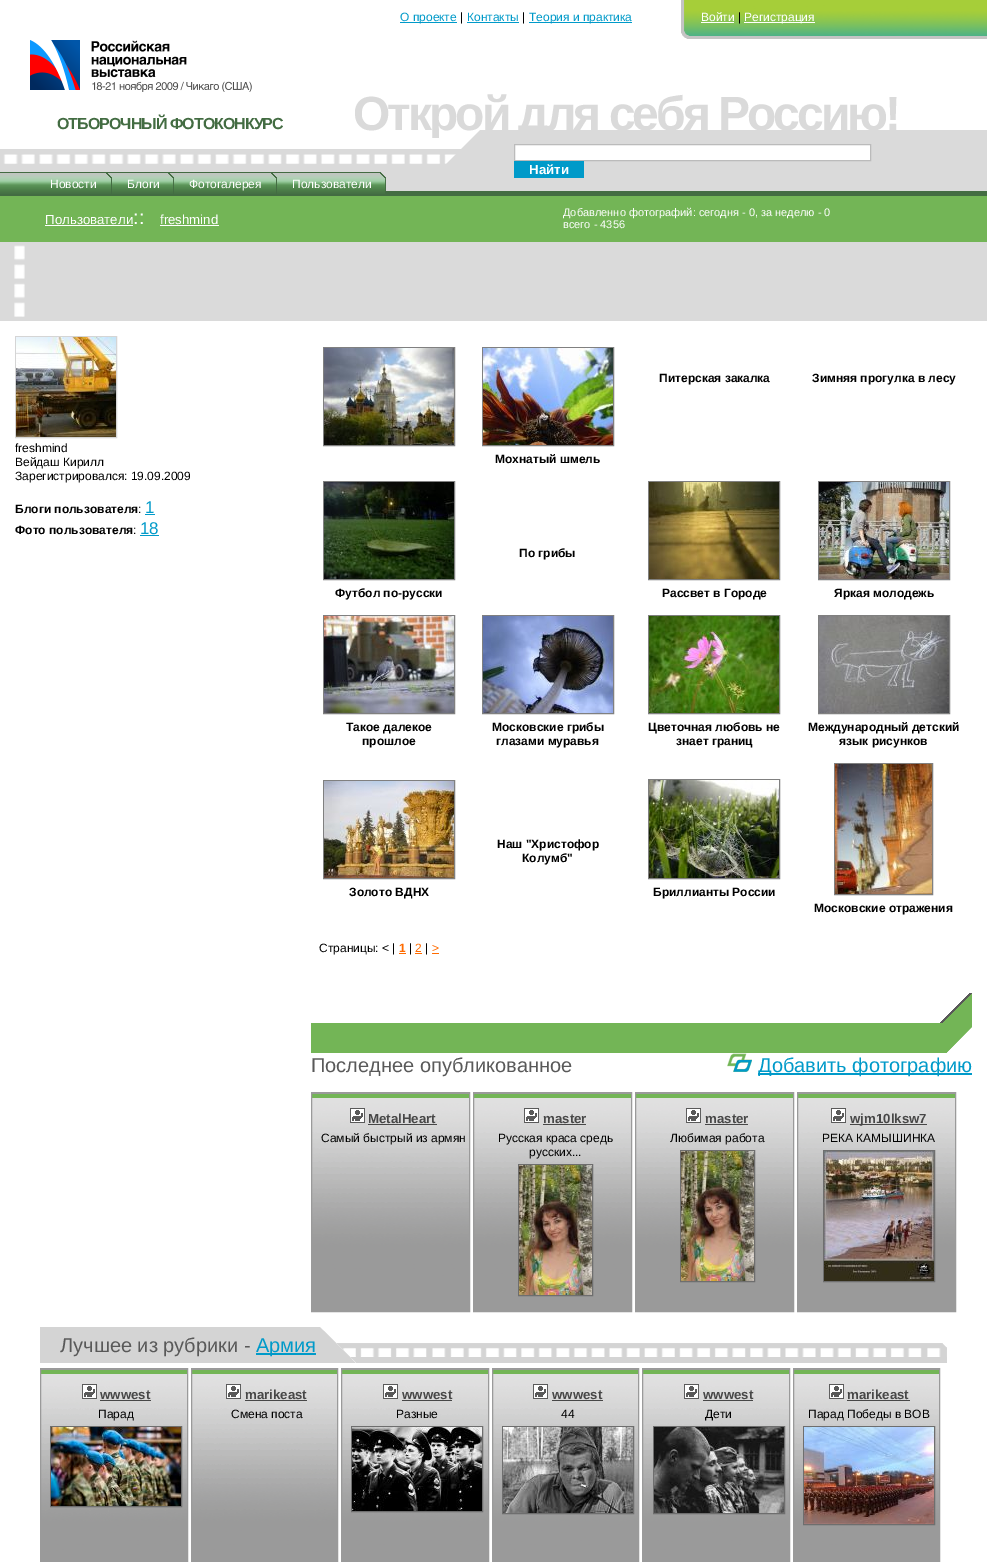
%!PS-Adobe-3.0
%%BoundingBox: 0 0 987 1562
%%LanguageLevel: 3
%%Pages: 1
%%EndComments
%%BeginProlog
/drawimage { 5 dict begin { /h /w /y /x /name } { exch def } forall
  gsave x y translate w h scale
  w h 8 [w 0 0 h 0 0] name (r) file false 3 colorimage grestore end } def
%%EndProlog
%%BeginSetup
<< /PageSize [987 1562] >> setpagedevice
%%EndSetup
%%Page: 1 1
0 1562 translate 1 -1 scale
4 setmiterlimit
1 setgray
0 0 987 1562 rectfill
0 0.604 0.788 setrgbcolor
400 22 57 1 rectfill
467 22 52 1 rectfill
529 22 103 1 rectfill
(images/1.raw) 681 0 306 39 drawimage
1 setgray
701 22 33 1 rectfill
744 22 71 1 rectfill
(images/2.raw) 30 40 222 52 drawimage
(images/3.raw) 494 130 493 66 drawimage
newpath 514.5 144.5 moveto 870.5 144.5 lineto 870.5 160.5 lineto 514.5 160.5 lineto closepath gsave fill grestore
0.733 setgray
stroke
0 0.604 0.788 setrgbcolor
514 161 70 17 rectfill
(images/4.raw) 0 130 494 66 drawimage
(images/5.raw) 0 172 112 22 drawimage
(images/6.raw) 112 172 62 22 drawimage
(images/7.raw) 174 172 103 22 drawimage
(images/8.raw) 277 172 109 22 drawimage
(images/9.raw) 0 196 987 125 drawimage
(images/10.raw) 14 245 11 72 drawimage
1 setgray
45 225 88 1 rectfill
160 225 59 1 rectfill
0.835 setgray
15.5 336.5 101 101 rectstroke
(images/11.raw) 16 337 100 100 drawimage
0 0.604 0.788 setrgbcolor
145 514 10 1 rectfill
140 535 19 1 rectfill
0.502 setgray
323.5 347.5 131 98 rectstroke
(images/12.raw) 324 348 130 97 drawimage
482.5 347.5 131 98 rectstroke
(images/13.raw) 483 348 130 97 drawimage
323.5 481.5 131 98 rectstroke
(images/14.raw) 324 482 130 97 drawimage
648.5 481.5 131 98 rectstroke
(images/15.raw) 649 482 130 97 drawimage
818.5 481.5 131 98 rectstroke
(images/16.raw) 819 482 130 97 drawimage
323.5 615.5 131 98 rectstroke
(images/17.raw) 324 616 130 97 drawimage
482.5 615.5 131 98 rectstroke
(images/18.raw) 483 616 130 97 drawimage
648.5 615.5 131 98 rectstroke
(images/19.raw) 649 616 130 97 drawimage
818.5 615.5 131 98 rectstroke
(images/20.raw) 819 616 130 97 drawimage
323.5 780.5 131 98 rectstroke
(images/21.raw) 324 781 130 97 drawimage
648.5 779.5 131 99 rectstroke
(images/22.raw) 649 780 130 98 drawimage
834.5 763.5 98 131 rectstroke
(images/23.raw) 835 764 97 130 drawimage
1 0.42 0 setrgbcolor
399 953 7 1 rectfill
415 953 7 1 rectfill
432 953 7 1 rectfill
(images/24.raw) 940 993 32 30 drawimage
(images/25.raw) 311 1023 661 30 drawimage
(images/26.raw) 727 1053 25 19 drawimage
0 0.604 0.788 setrgbcolor
758 1073 214 2 rectfill
(images/27.raw) 312 1093 157 218 drawimage
0.604 setgray
311.5 1092.5 158 219 rectstroke
(images/28.raw) 350 1108 15 15 drawimage
0.278 setgray
368 1124 69 1 rectfill
(images/27.raw) 474 1093 157 218 drawimage
0.604 setgray
473.5 1092.5 158 219 rectstroke
(images/28.raw) 524 1108 15 15 drawimage
0.278 setgray
543 1124 43 1 rectfill
0.431 setgray
518.5 1164.5 74 131 rectstroke
(images/29.raw) 519 1165 73 130 drawimage
(images/27.raw) 636 1093 157 218 drawimage
0.604 setgray
635.5 1092.5 158 219 rectstroke
(images/28.raw) 686 1108 15 15 drawimage
0.278 setgray
705 1124 43 1 rectfill
0.431 setgray
680.5 1150.5 74 131 rectstroke
(images/29.raw) 681 1151 73 130 drawimage
(images/27.raw) 798 1093 157 218 drawimage
0.604 setgray
797.5 1092.5 158 219 rectstroke
(images/28.raw) 831 1108 15 15 drawimage
0.278 setgray
850 1124 77 1 rectfill
0.431 setgray
823.5 1150.5 111 131 rectstroke
(images/30.raw) 824 1151 110 130 drawimage
(images/31.raw) 337 1343 610 20 drawimage
(images/32.raw) 40 1327 316 36 drawimage
0 0.604 0.788 setrgbcolor
256 1353 60 2 rectfill
(images/33.raw) 41 1369 146 193 drawimage
0.604 setgray
40.5 1368.5 147 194 rectstroke
(images/28.raw) 82 1384 15 15 drawimage
0.278 setgray
100 1400 51 1 rectfill
0.431 setgray
50.5 1426.5 131 80 rectstroke
(images/34.raw) 51 1427 130 79 drawimage
(images/35.raw) 192 1369 145 193 drawimage
0.604 setgray
191.5 1368.5 146 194 rectstroke
(images/28.raw) 226 1384 15 15 drawimage
0.278 setgray
245 1400 62 1 rectfill
(images/33.raw) 342 1369 146 193 drawimage
0.604 setgray
341.5 1368.5 147 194 rectstroke
(images/28.raw) 383 1384 15 15 drawimage
0.278 setgray
402 1400 50 1 rectfill
0.431 setgray
351.5 1426.5 131 85 rectstroke
(images/36.raw) 352 1427 130 84 drawimage
(images/35.raw) 493 1369 145 193 drawimage
0.604 setgray
492.5 1368.5 146 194 rectstroke
(images/28.raw) 533 1384 15 15 drawimage
0.278 setgray
552 1400 51 1 rectfill
0.431 setgray
502.5 1426.5 131 87 rectstroke
(images/37.raw) 503 1427 130 86 drawimage
(images/33.raw) 643 1369 146 193 drawimage
0.604 setgray
642.5 1368.5 147 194 rectstroke
(images/28.raw) 684 1384 15 15 drawimage
0.278 setgray
703 1400 50 1 rectfill
0.431 setgray
653.5 1426.5 131 87 rectstroke
(images/38.raw) 654 1427 130 86 drawimage
(images/35.raw) 794 1369 145 193 drawimage
0.604 setgray
793.5 1368.5 146 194 rectstroke
(images/28.raw) 829 1384 15 15 drawimage
0.278 setgray
847 1400 63 1 rectfill
0.431 setgray
803.5 1426.5 131 98 rectstroke
(images/39.raw) 804 1427 130 97 drawimage
/LiberationSans-Regular [12 0 0 -12 0 0] selectfont
0 0.604 0.788 setrgbcolor
400 21 moveto (О проекте) show
0 setgray
460 21 moveto (|) show
0 0.604 0.788 setrgbcolor
467 21 moveto (Контакты) show
0 setgray
522 21 moveto (|) show
0 0.604 0.788 setrgbcolor
529 21 moveto (Теория и практика) show
1 setgray
701 21 moveto (Войти) show
0 setgray
738 21 moveto (|) show
1 setgray
744 21 moveto (Регистрация) show
/LiberationSans-Bold [16 0 0 -16 0 0] selectfont
0.263 0.424 0.259 setrgbcolor
57 129 moveto -1 0 (ОТБОРОЧНЫЙ ФОТОКОНКУРС) ashow
gsave
353 90 545 48 rectclip
/LiberationSans-Bold [48 0 0 -48 0 0] selectfont
0.855 setgray
353 130 moveto -3 0 (Открой для себя Россию!) ashow
grestore
/LiberationSans-Bold [13.25 0 0 -13.25 0 0] selectfont
1 setgray
529 174 moveto (Найти) show
/LiberationSans-Regular [12 0 0 -12 0 0] selectfont
50 188 moveto (Новости) show
127 188 moveto (Блоги) show
189 188 moveto (Фотогалерея) show
292 188 moveto (Пользователи) show
/LiberationSans-Regular [13.25 0 0 -13.25 0 0] selectfont
45 224 moveto (Пользователи) show
/LiberationSans-Regular [20 0 0 -20 0 0] selectfont
133 224 moveto (::) show
/LiberationSans-Regular [13.25 0 0 -13.25 0 0] selectfont
160 224 moveto (freshmind) show
/LiberationSans-Regular [11 0 0 -11 0 0] selectfont
563 216 moveto (Добавленно фотографий: сегодня - 0, за неделю - 0) show
563 228 moveto (всего - 4356) show
/LiberationSans-Regular [12 0 0 -12 0 0] selectfont
0 setgray
15 452 moveto (freshmind) show
15 466 moveto (Вейдаш Кирилл) show
15 480 moveto (Зарегистрировался: 19.09.2009) show
/LiberationSans-Bold [12 0 0 -12 0 0] selectfont
15 513 moveto (Блоги пользователя) show
/LiberationSans-Regular [12 0 0 -12 0 0] selectfont
138 513 moveto (:) show
/LiberationSans-Regular [17 0 0 -17 0 0] selectfont
0 0.604 0.788 setrgbcolor
145 513 moveto (1) show
/LiberationSans-Bold [12 0 0 -12 0 0] selectfont
0 setgray
15 534 moveto (Фото пользователя) show
/LiberationSans-Regular [12 0 0 -12 0 0] selectfont
133 534 moveto (:) show
/LiberationSans-Regular [17 0 0 -17 0 0] selectfont
0 0.604 0.788 setrgbcolor
140 534 moveto (18) show
/LiberationSans-Bold [12 0 0 -12 0 0] selectfont
0 setgray
659 382 moveto (Питерская закалка) show
812 382 moveto (Зимняя прогулка в лесу) show
495 463 moveto (Мохнатый шмель) show
519 557 moveto (По грибы) show
335 597 moveto (Футбол по-русски) show
662 597 moveto (Рассвет в Городе) show
834 597 moveto (Яркая молодежь) show
346 731 moveto (Такое далекое) show
362 745 moveto (прошлое) show
492 731 moveto (Московские грибы) show
496 745 moveto (глазами муравья) show
648 731 moveto (Цветочная любовь не) show
676 745 moveto (знает границ) show
808 731 moveto (Международный детский) show
839 745 moveto (язык рисунков) show
497 848 moveto (Наш "Христофор) show
522 862 moveto (Колумб") show
349 896 moveto (Золото ВДНХ) show
653 896 moveto (Бриллианты России) show
814 912 moveto (Московские отражения) show
/LiberationSans-Regular [12 0 0 -12 0 0] selectfont
319 952 moveto (Страницы: < |) show
/LiberationSans-Bold [12 0 0 -12 0 0] selectfont
1 0.42 0 setrgbcolor
399 952 moveto (1) show
/LiberationSans-Regular [12 0 0 -12 0 0] selectfont
0 setgray
409 952 moveto (|) show
1 0.42 0 setrgbcolor
415 952 moveto (2) show
0 setgray
425 952 moveto (|) show
1 0.42 0 setrgbcolor
432 952 moveto (>) show
/LiberationSans-Regular [20 0 0 -20 0 0] selectfont
0.349 setgray
311 1072 moveto (Последнее опубликованное) show
0 0.604 0.788 setrgbcolor
758 1072 moveto (Добавить фотографию) show
/LiberationSans-Bold [13.25 0 0 -13.25 0 0] selectfont
0.278 setgray
368 1123 moveto (MetalHeart) show
/LiberationSans-Regular [12 0 0 -12 0 0] selectfont
0 setgray
321 1142 moveto (Самый быстрый из армян) show
/LiberationSans-Bold [13.25 0 0 -13.25 0 0] selectfont
0.278 setgray
543 1123 moveto (master) show
/LiberationSans-Regular [12 0 0 -12 0 0] selectfont
0 setgray
498 1142 moveto (Русская краса средь) show
529 1156 moveto (русских...) show
/LiberationSans-Bold [13.25 0 0 -13.25 0 0] selectfont
0.278 setgray
705 1123 moveto (master) show
/LiberationSans-Regular [12 0 0 -12 0 0] selectfont
0 setgray
670 1142 moveto (Любимая работа) show
/LiberationSans-Bold [13.25 0 0 -13.25 0 0] selectfont
0.278 setgray
850 1123 moveto (wjm10lksw7) show
/LiberationSans-Regular [12 0 0 -12 0 0] selectfont
0 setgray
822 1142 moveto (РЕКА КАМЫШИНКА) show
/LiberationSans-Regular [20 0 0 -20 0 0] selectfont
0.349 setgray
60 1352 moveto (Лучшее из рубрики -) show
0 0.604 0.788 setrgbcolor
256 1352 moveto (Армия) show
/LiberationSans-Bold [13.25 0 0 -13.25 0 0] selectfont
0.278 setgray
100 1399 moveto (wwwest) show
/LiberationSans-Regular [12 0 0 -12 0 0] selectfont
0 setgray
98 1418 moveto (Парад) show
/LiberationSans-Bold [13.25 0 0 -13.25 0 0] selectfont
0.278 setgray
245 1399 moveto (marikeast) show
/LiberationSans-Regular [12 0 0 -12 0 0] selectfont
0 setgray
231 1418 moveto (Смена поста) show
/LiberationSans-Bold [13.25 0 0 -13.25 0 0] selectfont
0.278 setgray
402 1399 moveto (wwwest) show
/LiberationSans-Regular [12 0 0 -12 0 0] selectfont
0 setgray
396 1418 moveto (Разные) show
/LiberationSans-Bold [13.25 0 0 -13.25 0 0] selectfont
0.278 setgray
552 1399 moveto (wwwest) show
/LiberationSans-Regular [12 0 0 -12 0 0] selectfont
0 setgray
561 1418 moveto (44) show
/LiberationSans-Bold [13.25 0 0 -13.25 0 0] selectfont
0.278 setgray
703 1399 moveto (wwwest) show
/LiberationSans-Regular [12 0 0 -12 0 0] selectfont
0 setgray
705 1418 moveto (Дети) show
/LiberationSans-Bold [13.25 0 0 -13.25 0 0] selectfont
0.278 setgray
847 1399 moveto (marikeast) show
/LiberationSans-Regular [12 0 0 -12 0 0] selectfont
0 setgray
808 1418 moveto (Парад Победы в ВОВ) show
showpage
%%EOF
